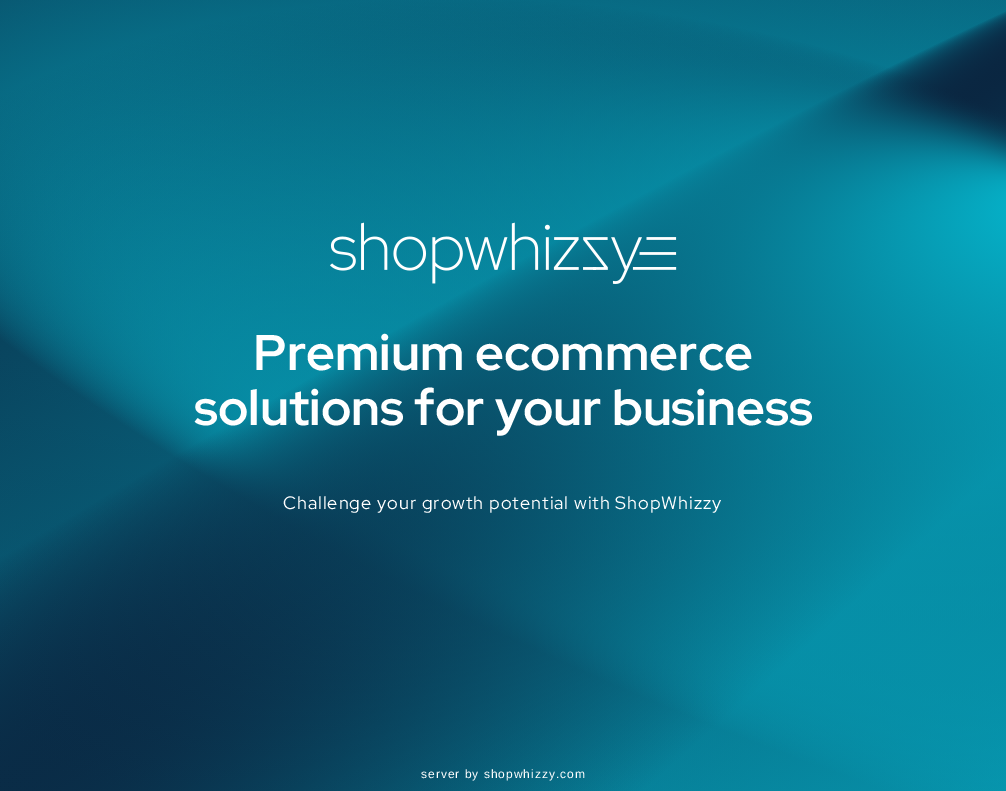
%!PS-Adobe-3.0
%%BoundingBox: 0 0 1006 791
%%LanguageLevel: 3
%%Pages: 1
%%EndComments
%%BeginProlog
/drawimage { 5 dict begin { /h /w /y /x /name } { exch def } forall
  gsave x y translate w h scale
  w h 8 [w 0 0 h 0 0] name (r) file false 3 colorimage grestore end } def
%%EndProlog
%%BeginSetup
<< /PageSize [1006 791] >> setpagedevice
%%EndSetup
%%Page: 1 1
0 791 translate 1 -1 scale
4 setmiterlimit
1 setgray
0 0 1006 791 rectfill
(images/1.raw) 0 0 1006 791 drawimage
(images/2.raw) 330 222 347 62 drawimage
/RedHatDisplay-Bold [50 0 0 -50 0 0] selectfont
253 370 moveto (Premium ecommerce) show
194 425 moveto (solutions for your business) show
/RedHatDisplay-Regular [18 0 0 -18 0 0] selectfont
283 509 moveto 1 0 (Challenge your growth potential with ShopWhizzy) ashow
/LiberationSans-Regular [12 0 0 -12 0 0] selectfont
421 778 moveto 1 0 (server by shopwhizzy.com) ashow
showpage
%%EOF
